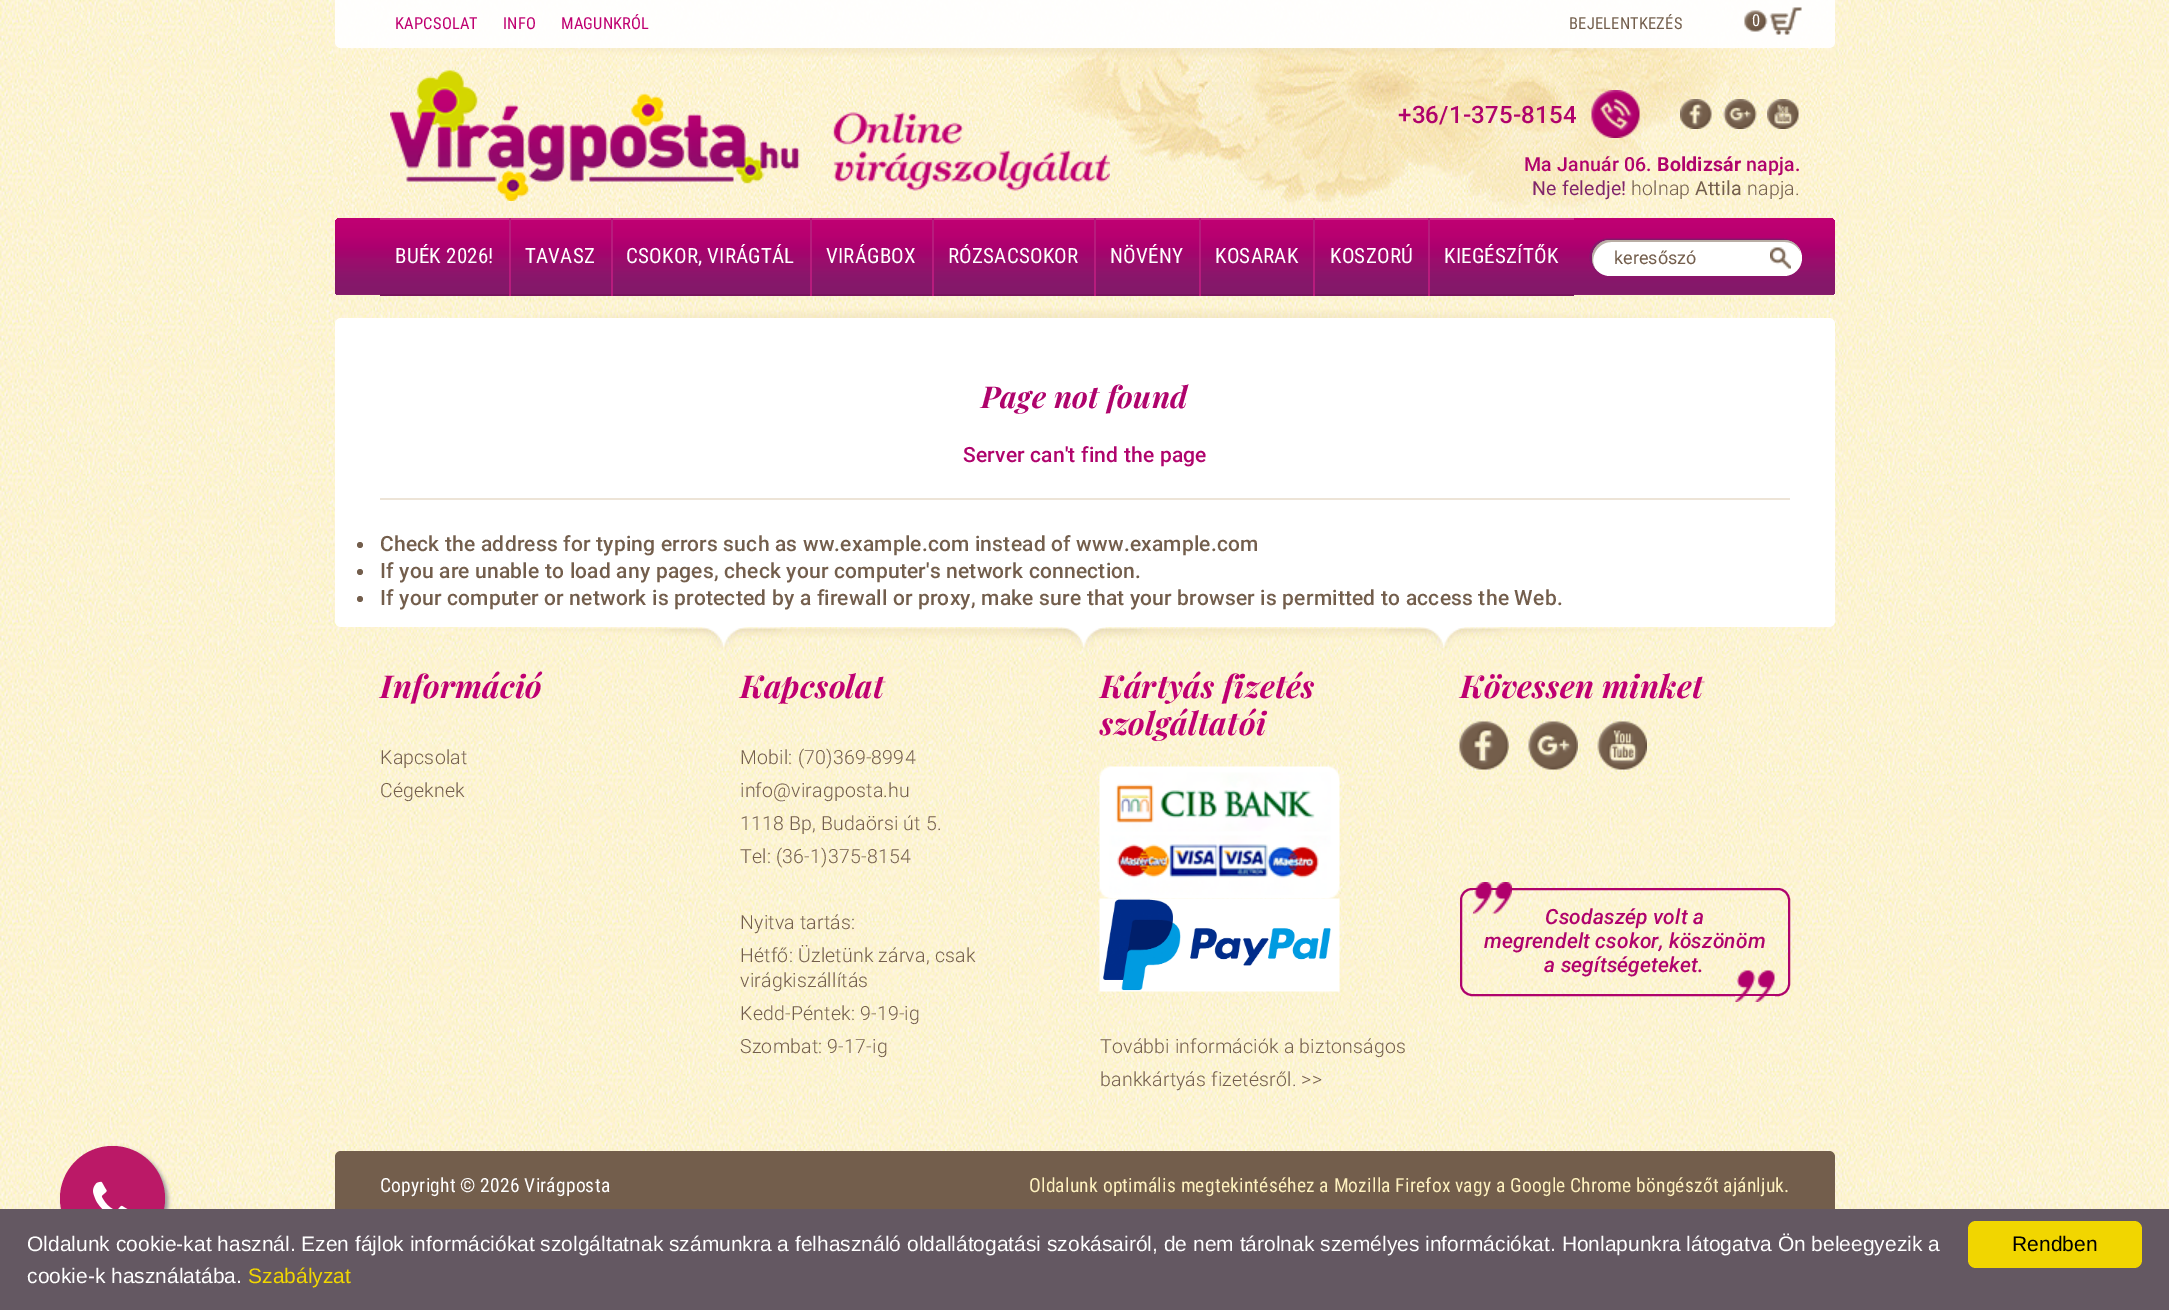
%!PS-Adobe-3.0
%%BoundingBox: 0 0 2169 1310
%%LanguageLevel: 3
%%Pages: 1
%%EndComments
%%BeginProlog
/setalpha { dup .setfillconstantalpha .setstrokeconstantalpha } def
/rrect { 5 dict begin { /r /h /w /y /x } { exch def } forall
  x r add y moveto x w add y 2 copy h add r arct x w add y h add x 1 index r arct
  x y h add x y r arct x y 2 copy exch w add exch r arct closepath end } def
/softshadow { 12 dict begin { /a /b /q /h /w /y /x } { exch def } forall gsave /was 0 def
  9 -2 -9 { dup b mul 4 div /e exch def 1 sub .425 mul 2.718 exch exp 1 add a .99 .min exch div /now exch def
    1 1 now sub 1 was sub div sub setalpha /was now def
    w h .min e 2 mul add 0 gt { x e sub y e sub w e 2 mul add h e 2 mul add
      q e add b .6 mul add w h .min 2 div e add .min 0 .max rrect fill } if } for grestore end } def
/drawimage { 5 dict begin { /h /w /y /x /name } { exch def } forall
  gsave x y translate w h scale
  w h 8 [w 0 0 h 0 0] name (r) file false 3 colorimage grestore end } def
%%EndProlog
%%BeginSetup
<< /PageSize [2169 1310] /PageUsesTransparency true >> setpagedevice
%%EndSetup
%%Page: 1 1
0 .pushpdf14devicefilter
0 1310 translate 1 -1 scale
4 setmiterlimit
1 setgray
0 0 2169 1310 rectfill
(images/1.raw) 0 0 2169 1209 drawimage
0.95 setalpha
newpath 335 0 moveto 1835 0 lineto 1835 42 lineto 1835 45.5 1832.5 48 1829 48 curveto 341 48 lineto 337.5 48 335 45.5 335 42 curveto closepath fill
1 setalpha
(images/2.raw) 1744 7 58 28 drawimage
(images/4.raw) 334 48 1501 170 drawimage
(images/3.raw) 471 48 1205 10 drawimage
(images/5.raw) 390 70 720 131 drawimage
(images/6.raw) 1591 90 49 48 drawimage
(images/7.raw) 1680 99 32 30 drawimage
(images/8.raw) 1723 99 34 30 drawimage
(images/9.raw) 1767 99 32 30 drawimage
gsave 335 218 1500 78 6 rrect clip newpath
<< /ShadingType 2 /ColorSpace /DeviceRGB /Coords [1085 217 1085 296] /Extend [true true] /Function << /FunctionType 3 /Domain [0 1] /Functions [<< /FunctionType 2 /Domain [0 1] /C0 [0.761 0.031 0.463] /C1 [0.761 0.031 0.463] /N 1 >> << /FunctionType 2 /Domain [0 1] /C0 [0.761 0.031 0.463] /C1 [0.753 0 0.447] /N 1 >> << /FunctionType 2 /Domain [0 1] /C0 [0.753 0 0.447] /C1 [0.718 0 0.439] /N 1 >> << /FunctionType 2 /Domain [0 1] /C0 [0.718 0 0.439] /C1 [0.671 0 0.435] /N 1 >> << /FunctionType 2 /Domain [0 1] /C0 [0.671 0 0.435] /C1 [0.655 0.016 0.427] /N 1 >> << /FunctionType 2 /Domain [0 1] /C0 [0.655 0.016 0.427] /C1 [0.627 0.035 0.427] /N 1 >> << /FunctionType 2 /Domain [0 1] /C0 [0.627 0.035 0.427] /C1 [0.62 0.047 0.427] /N 1 >> << /FunctionType 2 /Domain [0 1] /C0 [0.62 0.047 0.427] /C1 [0.573 0.071 0.42] /N 1 >> << /FunctionType 2 /Domain [0 1] /C0 [0.573 0.071 0.42] /C1 [0.553 0.082 0.42] /N 1 >> << /FunctionType 2 /Domain [0 1] /C0 [0.553 0.082 0.42] /C1 [0.522 0.094 0.416] /N 1 >> << /FunctionType 2 /Domain [0 1] /C0 [0.522 0.094 0.416] /C1 [0.514 0.098 0.412] /N 1 >> << /FunctionType 2 /Domain [0 1] /C0 [0.514 0.098 0.412] /C1 [0.529 0.125 0.431] /N 1 >> << /FunctionType 2 /Domain [0 1] /C0 [0.529 0.125 0.431] /C1 [0.529 0.125 0.431] /N 1 >> << /FunctionType 2 /Domain [0 1] /C0 [0.529 0.125 0.431] /C1 [0.996 0.957 0.824] /N 1 >>] /Bounds [0.01 0.02 0.25 0.39 0.42 0.51 0.52 0.67 0.7 0.84 0.97 0.98 0.99] /Encode [0 1 0 1 0 1 0 1 0 1 0 1 0 1 0 1 0 1 0 1 0 1 0 1 0 1 0 1] >> >> shfill grestore
0.796 0.176 0.545 setrgbcolor
380 218 1194 2 rectfill
0.467 0.082 0.365 setrgbcolor
380 294 1194 2 rectfill
0.718 0.11 0.49 setrgbcolor
509 218 2 78 rectfill
611 218 2 78 rectfill
810 218 2 78 rectfill
932 218 2 78 rectfill
1094 218 2 78 rectfill
1199 218 2 78 rectfill
1313 218 2 78 rectfill
1428 218 2 78 rectfill
0.514 0.098 0.412 setrgbcolor
1590 239 210 36 18 0.5 1 softshadow
1590 239 210 36 18 0.5 1 softshadow
1 setgray
1592 240 210 36 18 rrect fill
0.5 setalpha
0.451 0.369 0.298 setrgbcolor
newpath 1611 242 moveto 1785 242 lineto 1792 242 1797 246 1800 251 curveto 1798 244 1791 240 1784 240 curveto 1610 240 lineto 1600 240 1592 248 1592 258 curveto 1592 262 1593 265 1595 268 curveto 1589 257 1598 242 1611 242 curveto closepath fill
1 setalpha
(images/10.raw) 1770 247 21 22 drawimage
1 setgray
335 318 1500 309 6 rrect fill
(images/11.raw) 482 308 1201 10 drawimage
0.929 0.894 0.843 setrgbcolor
380 498 1410 2 rectfill
0.451 0.369 0.298 setrgbcolor
newpath 360 545 3 0 360 arc closepath fill
newpath 360 572 3 0 360 arc closepath fill
newpath 360 599 3 0 360 arc closepath fill
(images/12.raw) 483 627 1214 23 drawimage
(images/13.raw) 1099 766 241 133 drawimage
(images/14.raw) 1099 898 241 94 drawimage
(images/15.raw) 1459 721 50 49 drawimage
(images/16.raw) 1528 721 50 49 drawimage
(images/17.raw) 1597 721 50 49 drawimage
0.686 0.012 0.424 setrgbcolor
2 setlinewidth
1461 889 328 106 11 rrect stroke
(images/18.raw) 1473 882 39 32 drawimage
(images/19.raw) 1735 970 40 32 drawimage
0.6 setgray
63 1149 105 105 52.5 2 1 softshadow
0.733 0.098 0.404 setrgbcolor
newpath 112.5 1198.5 52.5 0 360 arc closepath fill
(images/20.raw) 93 1181 35 28 drawimage
0.451 0.369 0.298 setrgbcolor
335 1151 1500 73 6 rrect fill
0.392 0.345 0.384 setrgbcolor
0 1209 2169 101 rectfill
0.945 0.839 0 setrgbcolor
1968 1221 174 47 8 rrect fill
/RobotoCondensed-Regular [16.5 0 0 -16.5 0 0] selectfont
0.749 0 0.443 setrgbcolor
395 29 moveto 0.2 0 (KAPCSOLAT) ashow
503 29 moveto 0.2 0 (INFO) ashow
561 29 moveto 0.2 0 (MAGUNKRÓL) ashow
0.451 0.369 0.298 setrgbcolor
1569 29 moveto 0.2 0 (BEJELENTKEZÉS) ashow
1 setgray
1752 26 moveto 0.2 0 (0) ashow
/Roboto-Medium [24 0 0 -24 0 0] selectfont
0.686 0.012 0.424 setrgbcolor
1398 123 moveto 0.25 0 (+36/1-375-8154) ashow
/Roboto-Medium [19.5 0 0 -19.5 0 0] selectfont
1524 171 moveto 0.2 0 (Ma Január 06.) ashow
/Roboto-Bold [19.5 0 0 -19.5 0 0] selectfont
1657 171 moveto 0.2 0 (Boldizsár) ashow
/Roboto-Medium [19.5 0 0 -19.5 0 0] selectfont
1746 171 moveto 0.2 0 (napja.) ashow
/Roboto-Regular [19.5 0 0 -19.5 0 0] selectfont
0.502 0.145 0.416 setrgbcolor
1532 195 moveto 0.2 0 (Ne feledje!) ashow
/Roboto-Light [19.5 0 0 -19.5 0 0] selectfont
0.451 0.369 0.298 setrgbcolor
1631 195 moveto 0.2 0 (holnap) ashow
/Roboto-Regular [19.5 0 0 -19.5 0 0] selectfont
1695 195 moveto 0.2 0 (Attila) ashow
/Roboto-Light [19.5 0 0 -19.5 0 0] selectfont
1747 195 moveto 0.2 0 (napja.) ashow
/RobotoCondensed-Regular [21 0 0 -21 0 0] selectfont
1 setgray
395 263 moveto 0.21 0 (BUÉK 2026!) ashow
525 263 moveto 0.21 0 (TAVASZ) ashow
626 263 moveto 0.21 0 (CSOKOR, VIRÁGTÁL) ashow
826 263 moveto 0.21 0 (VIRÁGBOX) ashow
948 263 moveto 0.21 0 (RÓZSACSOKOR) ashow
1110 263 moveto 0.21 0 (NÖVÉNY) ashow
1215 263 moveto 0.21 0 (KOSARAK) ashow
1330 263 moveto 0.21 0 (KOSZORÚ) ashow
1444 263 moveto 0.21 0 (KIEGÉSZÍTŐK) ashow
/Roboto-Regular [18 0 0 -18 0 0] selectfont
0.451 0.369 0.298 setrgbcolor
1614 264 moveto (keresőszó) show
/PlayfairDisplay-BoldItalic [30 0 0 -30 0 0] selectfont
0.686 0.012 0.424 setrgbcolor
981 408 moveto 0.21 0 (Page not found) ashow
/Roboto-Medium [21 0 0 -21 0 0] selectfont
963 462 moveto 0.21 0 (Server can't find the page) ashow
0.451 0.369 0.298 setrgbcolor
380 551 moveto 0.21 0 (Check the address for typing errors such as ww.example.com instead of www.example.com) ashow
380 578 moveto 0.21 0 (If you are unable to load any pages, check your computer's network connection.) ashow
380 605 moveto 0.21 0 (If your computer or network is protected by a firewall or proxy, make sure that your browser is permitted to access the Web.) ashow
/PlayfairDisplay-BoldItalic [31.5 0 0 -31.5 0 0] selectfont
0.749 0 0.443 setrgbcolor
380 698 moveto 0.3 0 (Információ) ashow
/Roboto-Light [19.5 0 0 -19.5 0 0] selectfont
0.451 0.369 0.298 setrgbcolor
380 764 moveto 0.2 0 (Kapcsolat) ashow
380 797 moveto 0.2 0 (Cégeknek) ashow
/PlayfairDisplay-BoldItalic [31.5 0 0 -31.5 0 0] selectfont
0.749 0 0.443 setrgbcolor
740 698 moveto 0.3 0 (Kapcsolat) ashow
/Roboto-Light [19.5 0 0 -19.5 0 0] selectfont
0.451 0.369 0.298 setrgbcolor
740 764 moveto 0.2 0 (Mobil: \(70\)369-8994) ashow
740 797 moveto 0.2 0 (info@viragposta.hu) ashow
740 830 moveto 0.2 0 (1118 Bp, Budaörsi út 5.) ashow
740 863 moveto 0.2 0 (Tel: \(36-1\)375-8154) ashow
740 929 moveto 0.2 0 (Nyitva tartás:) ashow
740 962 moveto 0.2 0 (Hétfő: Üzletünk zárva, csak) ashow
740 987 moveto 0.2 0 (virágkiszállítás) ashow
740 1020 moveto 0.2 0 (Kedd-Péntek: 9-19-ig) ashow
740 1053 moveto 0.2 0 (Szombat: 9-17-ig) ashow
/PlayfairDisplay-BoldItalic [31.5 0 0 -31.5 0 0] selectfont
0.749 0 0.443 setrgbcolor
1100 698 moveto 0.3 0 (Kártyás fizetés) ashow
1100 735 moveto 0.3 0 (szolgáltatói) ashow
/Roboto-Light [19.5 0 0 -19.5 0 0] selectfont
0.451 0.369 0.298 setrgbcolor
1100 1053 moveto 0.2 0 (További információk a biztonságos) ashow
1100 1086 moveto 0.2 0 (bankkártyás fizetésről. >>) ashow
/PlayfairDisplay-BoldItalic [31.5 0 0 -31.5 0 0] selectfont
0.749 0 0.443 setrgbcolor
1460 698 moveto 0.3 0 (Kövessen minket) ashow
/Roboto-MediumItalic [21 0 0 -21 0 0] selectfont
0.686 0.012 0.424 setrgbcolor
1545 924 moveto 0.21 0 (Csodaszép volt a) ashow
1484 948 moveto 0.21 0 (megrendelt csokor, köszönöm) ashow
1544 972 moveto 0.21 0 (a segítségeteket.) ashow
/RobotoCondensed-Regular [19.5 0 0 -19.5 0 0] selectfont
1 setgray
380 1192 moveto 0.2 0 (Copyright © 2026 Virágposta) ashow
0.996 0.945 0.745 setrgbcolor
1029 1192 moveto 0.2 0 (Oldalunk optimális megtekintéséhez a Mozilla Firefox vagy a Google Chrome böngészőt ajánljuk.) ashow
/LiberationSans-Regular [21 0 0 -21 0 0] selectfont
1 setgray
27 1251 moveto (Oldalunk cookie-kat használ. Ezen fájlok információkat szolgáltatnak számunkra a felhasználó oldallátogatási szokásairól, de nem tárolnak személyes információkat. Honlapunkra látogatva Ön beleegyezik a) show
27 1283 moveto (cookie-k használatába.) show
0.945 0.839 0 setrgbcolor
248 1283 moveto (Szabályzat) show
0 setgray
2012 1251 moveto (Rendben) show
.poppdf14devicefilter showpage
%%EOF
